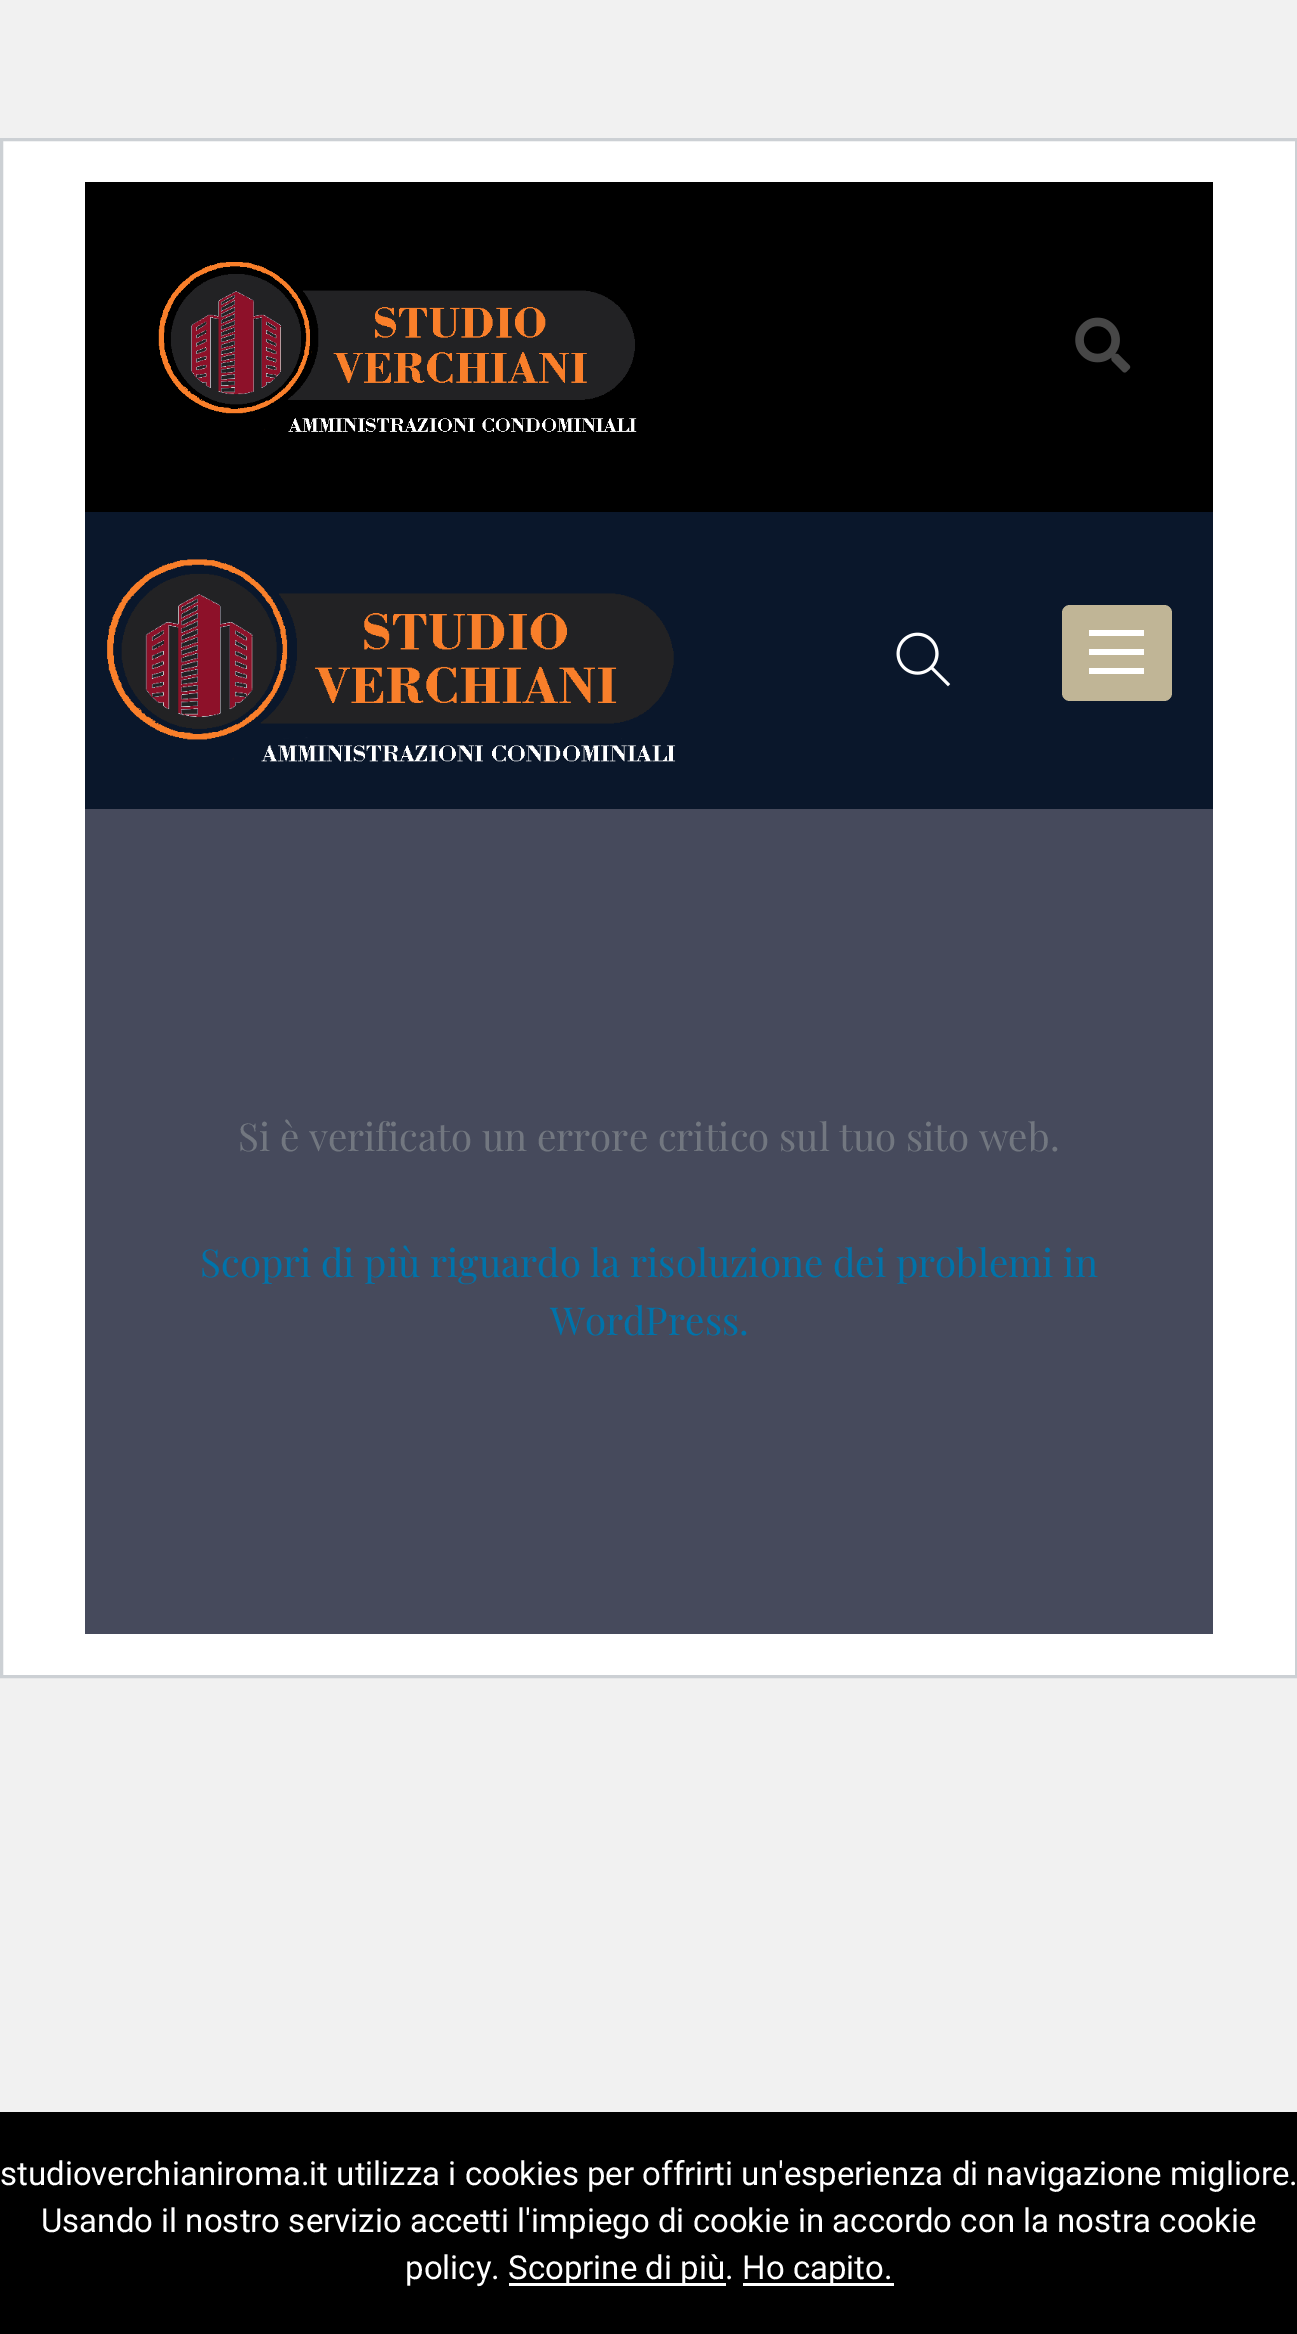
%!PS-Adobe-3.0
%%BoundingBox: 0 0 1297 2334
%%LanguageLevel: 3
%%Pages: 1
%%EndComments
%%BeginProlog
/rrect { 5 dict begin { /r /h /w /y /x } { exch def } forall
  x r add y moveto x w add y 2 copy h add r arct x w add y h add x 1 index r arct
  x y h add x y r arct x y 2 copy exch w add exch r arct closepath end } def
/drawimage { 5 dict begin { /h /w /y /x /name } { exch def } forall
  gsave x y translate w h scale
  w h 8 [w 0 0 h 0 0] name (r) file false 3 colorimage grestore end } def
%%EndProlog
%%BeginSetup
<< /PageSize [1297 2334] >> setpagedevice
%%EndSetup
%%Page: 1 1
0 2334 translate 1 -1 scale
4 setmiterlimit
0.945 setgray
0 0 1297 2334 rectfill
1 setgray
newpath 1.5 139.5 moveto 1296.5 139.5 lineto 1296.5 1676.5 lineto 1.5 1676.5 lineto closepath gsave fill grestore
0.8 0.816 0.831 setrgbcolor
3 setlinewidth
stroke
0 setgray
85 182 1128 330 rectfill
(images/1.raw) 158 262 479 170 drawimage
(images/2.raw) 1075 317 56 56 drawimage
0.039 0.09 0.169 setrgbcolor
85 512 1128 297 rectfill
(images/3.raw) 107 559 569 203 drawimage
0.753 0.71 0.588 setrgbcolor
1062 605 110 96 8 rrect fill
1 setgray
1089 630 55 6 rectfill
1089 649 55 6 rectfill
1089 668 55 6 rectfill
(images/4.raw) 896 632 55 55 drawimage
0.275 0.29 0.361 setrgbcolor
85 809 1128 825 rectfill
0 setgray
0 2112 1297 222 rectfill
1 setgray
509 2283 217 3 rectfill
743 2283 151 3 rectfill
/PlayfairDisplay-Regular [38.5 0 0 -38.5 0 0] selectfont
0.447 0.467 0.502 setrgbcolor
238 1151 moveto (Si è verificato un errore critico sul tuo sito web.) show
0 0.451 0.667 setrgbcolor
200 1277 moveto (Scopri di più riguardo la risoluzione dei problemi in) show
550 1335 moveto (WordPress.) show
/Roboto-Regular [33 0 0 -33 0 0] selectfont
1 setgray
0 2185 moveto (studioverchianiroma.it utilizza i cookies per offrirti un'esperienza di navigazione migliore.) show
41 2232 moveto (Usando il nostro servizio accetti l'impiego di cookie in accordo con la nostra cookie) show
405 2279 moveto (policy.) show
508 2279 moveto (Scoprine di più.) show
742 2279 moveto (Ho capito.) show
showpage
%%EOF
